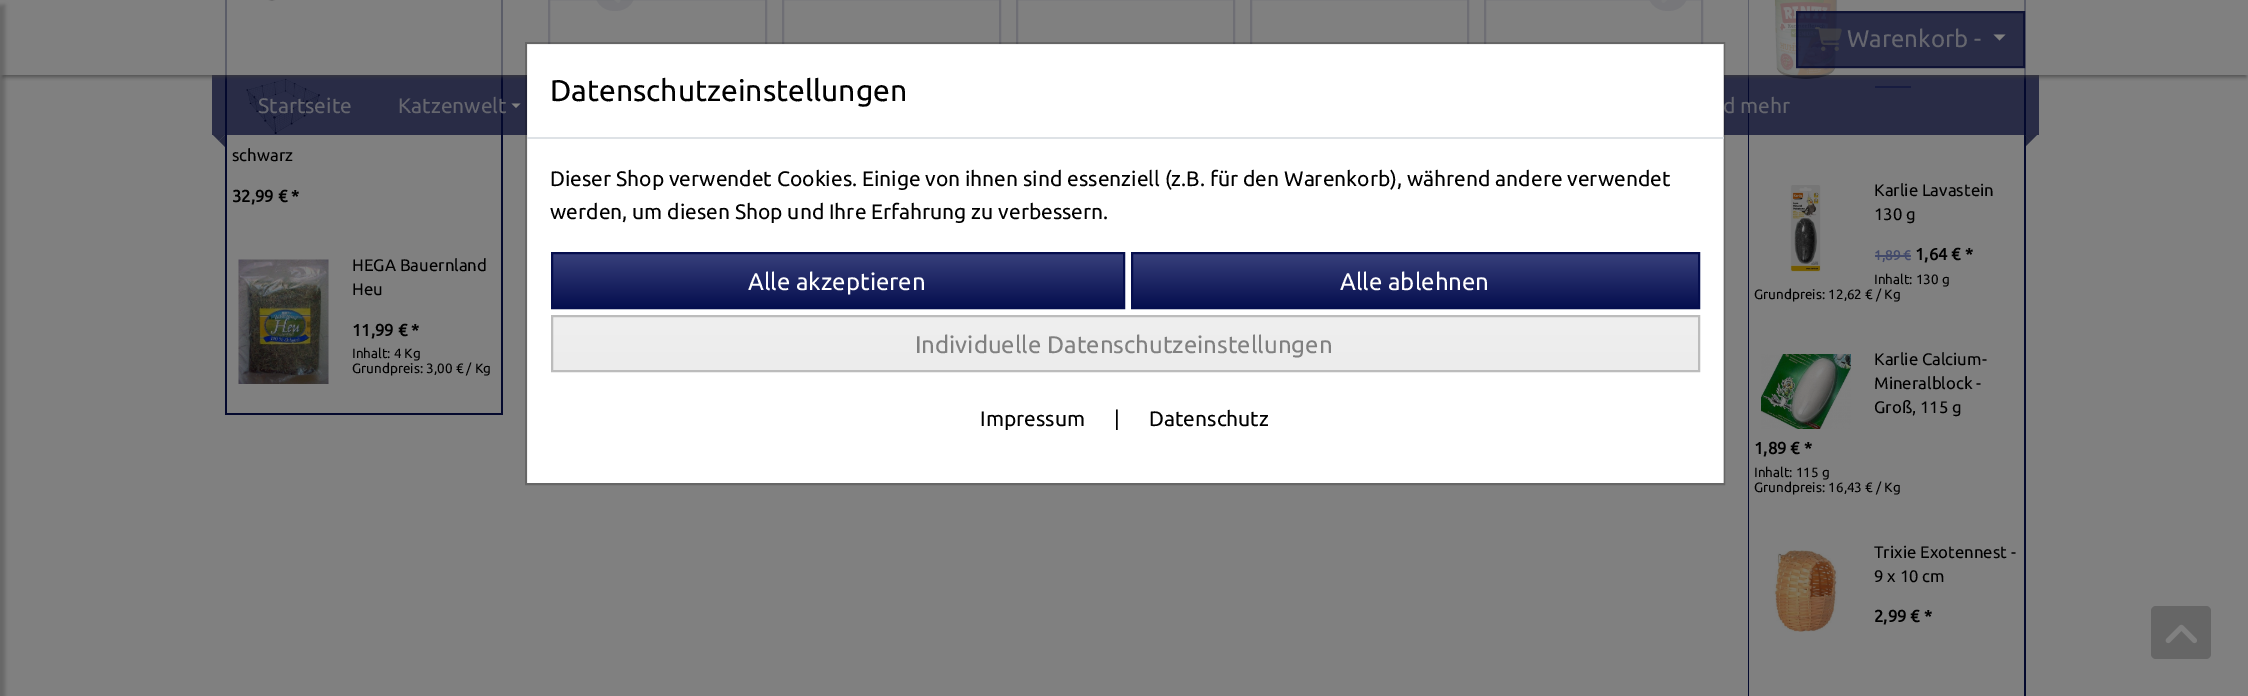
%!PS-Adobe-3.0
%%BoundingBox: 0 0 2248 696
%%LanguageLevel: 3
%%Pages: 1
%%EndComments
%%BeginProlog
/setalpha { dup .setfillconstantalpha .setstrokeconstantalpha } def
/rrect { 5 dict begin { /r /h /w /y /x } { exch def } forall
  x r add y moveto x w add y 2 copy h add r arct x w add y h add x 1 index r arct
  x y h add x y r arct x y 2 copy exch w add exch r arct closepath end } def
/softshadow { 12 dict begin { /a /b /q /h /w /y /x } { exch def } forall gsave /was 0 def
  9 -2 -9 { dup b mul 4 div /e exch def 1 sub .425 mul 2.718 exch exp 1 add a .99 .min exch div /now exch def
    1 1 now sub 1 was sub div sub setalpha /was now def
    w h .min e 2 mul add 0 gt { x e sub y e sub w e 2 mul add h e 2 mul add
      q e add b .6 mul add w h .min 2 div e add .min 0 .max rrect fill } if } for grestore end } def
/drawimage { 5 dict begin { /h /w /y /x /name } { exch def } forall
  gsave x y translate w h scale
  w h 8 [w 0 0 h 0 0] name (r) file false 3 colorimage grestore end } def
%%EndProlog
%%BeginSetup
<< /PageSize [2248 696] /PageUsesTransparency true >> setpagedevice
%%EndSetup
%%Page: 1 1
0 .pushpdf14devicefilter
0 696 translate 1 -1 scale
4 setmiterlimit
0.502 setgray
0 0 2248 696 rectfill
0 setgray
-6 5 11 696 0 2 0.2 softshadow
0.259 0.267 0.341 setrgbcolor
2 setlinewidth
549 -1 217 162 rectstroke
783 -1 217 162 rectstroke
1017 -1 217 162 rectstroke
1251 -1 217 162 rectstroke
1485 -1 217 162 rectstroke
0.016 0.035 0.18 setrgbcolor
501 0 2 414 rectfill
225 413 278 2 rectfill
225 0 2 414 rectfill
(images/5.raw) 246 78 74 56 drawimage
2024 0 2 696 rectfill
1748 0 1 696 rectfill
(images/7.raw) 1774 0 64 79 drawimage
0.263 0.29 0.42 setrgbcolor
1875 86 36 2 rectfill
0.7 setalpha
0.016 0.035 0.18 setrgbcolor
212 75 1827 60 rectfill
0.5 setalpha
0.259 0.267 0.341 setrgbcolor
newpath 615 11 moveto 643 11 642 -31 615 -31 curveto 588 -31 587 11 615 11 curveto closepath fill
1 setalpha
(images/2.raw) 614 0 7 3 drawimage
0.38 0.384 0.42 setrgbcolor
newpath 1668 11 moveto 1696 11 1695 -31 1668 -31 curveto 1641 -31 1640 11 1668 11 curveto closepath fill
(images/3.raw) 1661 0 6 3 drawimage
gsave
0 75 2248 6 rectclip
0.235 setgray
3 8 2243 69 0 2 0.7 softshadow
grestore
(images/4.raw) 268 0 8 1 drawimage
0.7 setalpha
0.502 setgray
225 0 1801 75 rectfill
0.016 0.035 0.18 setrgbcolor
1796 11 229 57 rectfill
1797 12 227 55 rectstroke
1 setalpha
(images/1.raw) 1815 27 27 24 drawimage
0.502 setgray
newpath 1993.5 34.5 moveto 2005.5 34.5 lineto 1999.5 40.5 lineto closepath fill
newpath 511.5 103.5 moveto 520.5 103.5 lineto 516 108 lineto closepath fill
0.157 0.169 0.259 setrgbcolor
newpath 213 135 moveto 225 135 lineto 219 141 lineto closepath fill
newpath 225 135 moveto 225 147 lineto 219 141 lineto closepath fill
newpath 2025 135 moveto 2037 135 lineto 2031 141 lineto closepath fill
0.7 setalpha
0.012 0.027 0.153 setrgbcolor
newpath 2025 147 moveto 2025 135 lineto 2031 141 lineto closepath fill
1 setalpha
(images/6.raw) 238 259 91 125 drawimage
0.263 0.29 0.42 setrgbcolor
1875 255 36 2 rectfill
(images/8.raw) 1790 185 31 87 drawimage
(images/9.raw) 1761 354 90 75 drawimage
(images/10.raw) 1773 550 65 82 drawimage
1 setgray
527 44 1197 439 rectfill
0.4 setgray
2151 606 60 53 5 rrect fill
(images/11.raw) 2165 624 32 20 drawimage
/Ubuntu-Regular [24 0 0 -24 0 0] selectfont
0.396 0.4 0.431 setrgbcolor
1847 47 moveto (Warenkorb -) show
/Ubuntu-Regular [21 0 0 -21 0 0] selectfont
258 113 moveto (Startseite) show
398 113 moveto (Katzenwelt) show
1723 113 moveto (d mehr) show
/Ubuntu-Regular [16.75 0 0 -16.75 0 0] selectfont
0 setgray
232 161 moveto (schwarz) show
/Ubuntu-Bold [16.75 0 0 -16.75 0 0] selectfont
232 202 moveto (32,99 € *) show
/Ubuntu-Regular [16.75 0 0 -16.75 0 0] selectfont
352 271 moveto (HEGA Bauernland) show
352 295 moveto (Heu) show
/Ubuntu-Bold [16.75 0 0 -16.75 0 0] selectfont
352 336 moveto (11,99 € *) show
/Ubuntu-Regular [13.5 0 0 -13.5 0 0] selectfont
352 358 moveto (Inhalt: 4 Kg) show
352 373 moveto (Grundpreis: 3,00 € / Kg) show
/Ubuntu-Regular [16.75 0 0 -16.75 0 0] selectfont
1874 196 moveto (Karlie Lavastein) show
1874 220 moveto (130 g) show
/Ubuntu-Bold [13.5 0 0 -13.5 0 0] selectfont
0.263 0.29 0.42 setrgbcolor
1874 260 moveto (1,89 €) show
/Ubuntu-Bold [16.75 0 0 -16.75 0 0] selectfont
0 setgray
1915 260 moveto (1,64 € *) show
/Ubuntu-Regular [13.5 0 0 -13.5 0 0] selectfont
1874 284 moveto (Inhalt: 130 g) show
1754 299 moveto (Grundpreis: 12,62 € / Kg) show
/Ubuntu-Regular [16.75 0 0 -16.75 0 0] selectfont
1874 365 moveto (Karlie Calcium-) show
1874 389 moveto (Mineralblock -) show
1874 413 moveto (Groß, 115 g) show
/Ubuntu-Bold [16.75 0 0 -16.75 0 0] selectfont
1754 454 moveto (1,89 € *) show
/Ubuntu-Regular [13.5 0 0 -13.5 0 0] selectfont
1754 477 moveto (Inhalt: 115 g) show
1754 492 moveto (Grundpreis: 16,43 € / Kg) show
/Ubuntu-Regular [16.75 0 0 -16.75 0 0] selectfont
1874 558 moveto (Trixie Exotennest -) show
1874 582 moveto (9 x 10 cm) show
/Ubuntu-Bold [16.75 0 0 -16.75 0 0] selectfont
1874 622 moveto (2,99 € *) show
0.2 setalpha
526 43 1198 441 rectstroke
1 setalpha
0.871 0.886 0.902 setrgbcolor
527 137 1197 2 rectfill
/Ubuntu-Regular [30 0 0 -30 0 0] selectfont
0 setgray
550 101 moveto (Datenschutzeinstellungen) show
/Ubuntu-Regular [21 0 0 -21 0 0] selectfont
550 186 moveto (Dieser Shop verwendet Cookies. Einige von ihnen sind essenziell \(z.B. für den Warenkorb\), während andere verwendet) show
550 219 moveto (werden, um diesen Shop und Ihre Erfahrung zu verbessern.) show
gsave newpath 553 254 moveto 1123 254 lineto 1123 307 lineto 553 307 lineto closepath clip newpath
<< /ShadingType 2 /ColorSpace /DeviceRGB /Coords [838 253 838 308] /Extend [true true] /Function << /FunctionType 2 /Domain [0 1] /C0 [0.22 0.251 0.486] /C1 [0.02 0.055 0.306] /N 1 >> >> shfill grestore
0.02 0.055 0.306 setrgbcolor
552 253 572 55 rectstroke
/Ubuntu-Regular [24 0 0 -24 0 0] selectfont
1 setgray
748 290 moveto (Alle akzeptieren) show
gsave newpath 1133 254 moveto 1698 254 lineto 1698 307 lineto 1133 307 lineto closepath clip newpath
<< /ShadingType 2 /ColorSpace /DeviceRGB /Coords [1415 253 1415 308] /Extend [true true] /Function << /FunctionType 2 /Domain [0 1] /C0 [0.22 0.251 0.486] /C1 [0.02 0.055 0.306] /N 1 >> >> shfill grestore
0.02 0.055 0.306 setrgbcolor
1132 253 567 55 rectstroke
1 setgray
1340 290 moveto (Alle ablehnen) show
gsave newpath 553 317 moveto 1698 317 lineto 1698 370 lineto 553 370 lineto closepath clip newpath
<< /ShadingType 2 /ColorSpace /DeviceRGB /Coords [1125 316 1125 371] /Extend [true true] /Function << /FunctionType 2 /Domain [0 1] /C0 [0.937 0.937 0.937] /C1 [0.925 0.925 0.925] /N 1 >> >> shfill grestore
0.737 setgray
552 316 1147 55 rectstroke
0.502 setgray
915 353 moveto (Individuelle Datenschutzeinstellungen) show
/Ubuntu-Regular [21 0 0 -21 0 0] selectfont
0 setgray
980 426 moveto (Impressum) show
1114 426 moveto (|) show
1149 426 moveto (Datenschutz) show
.poppdf14devicefilter showpage
%%EOF
